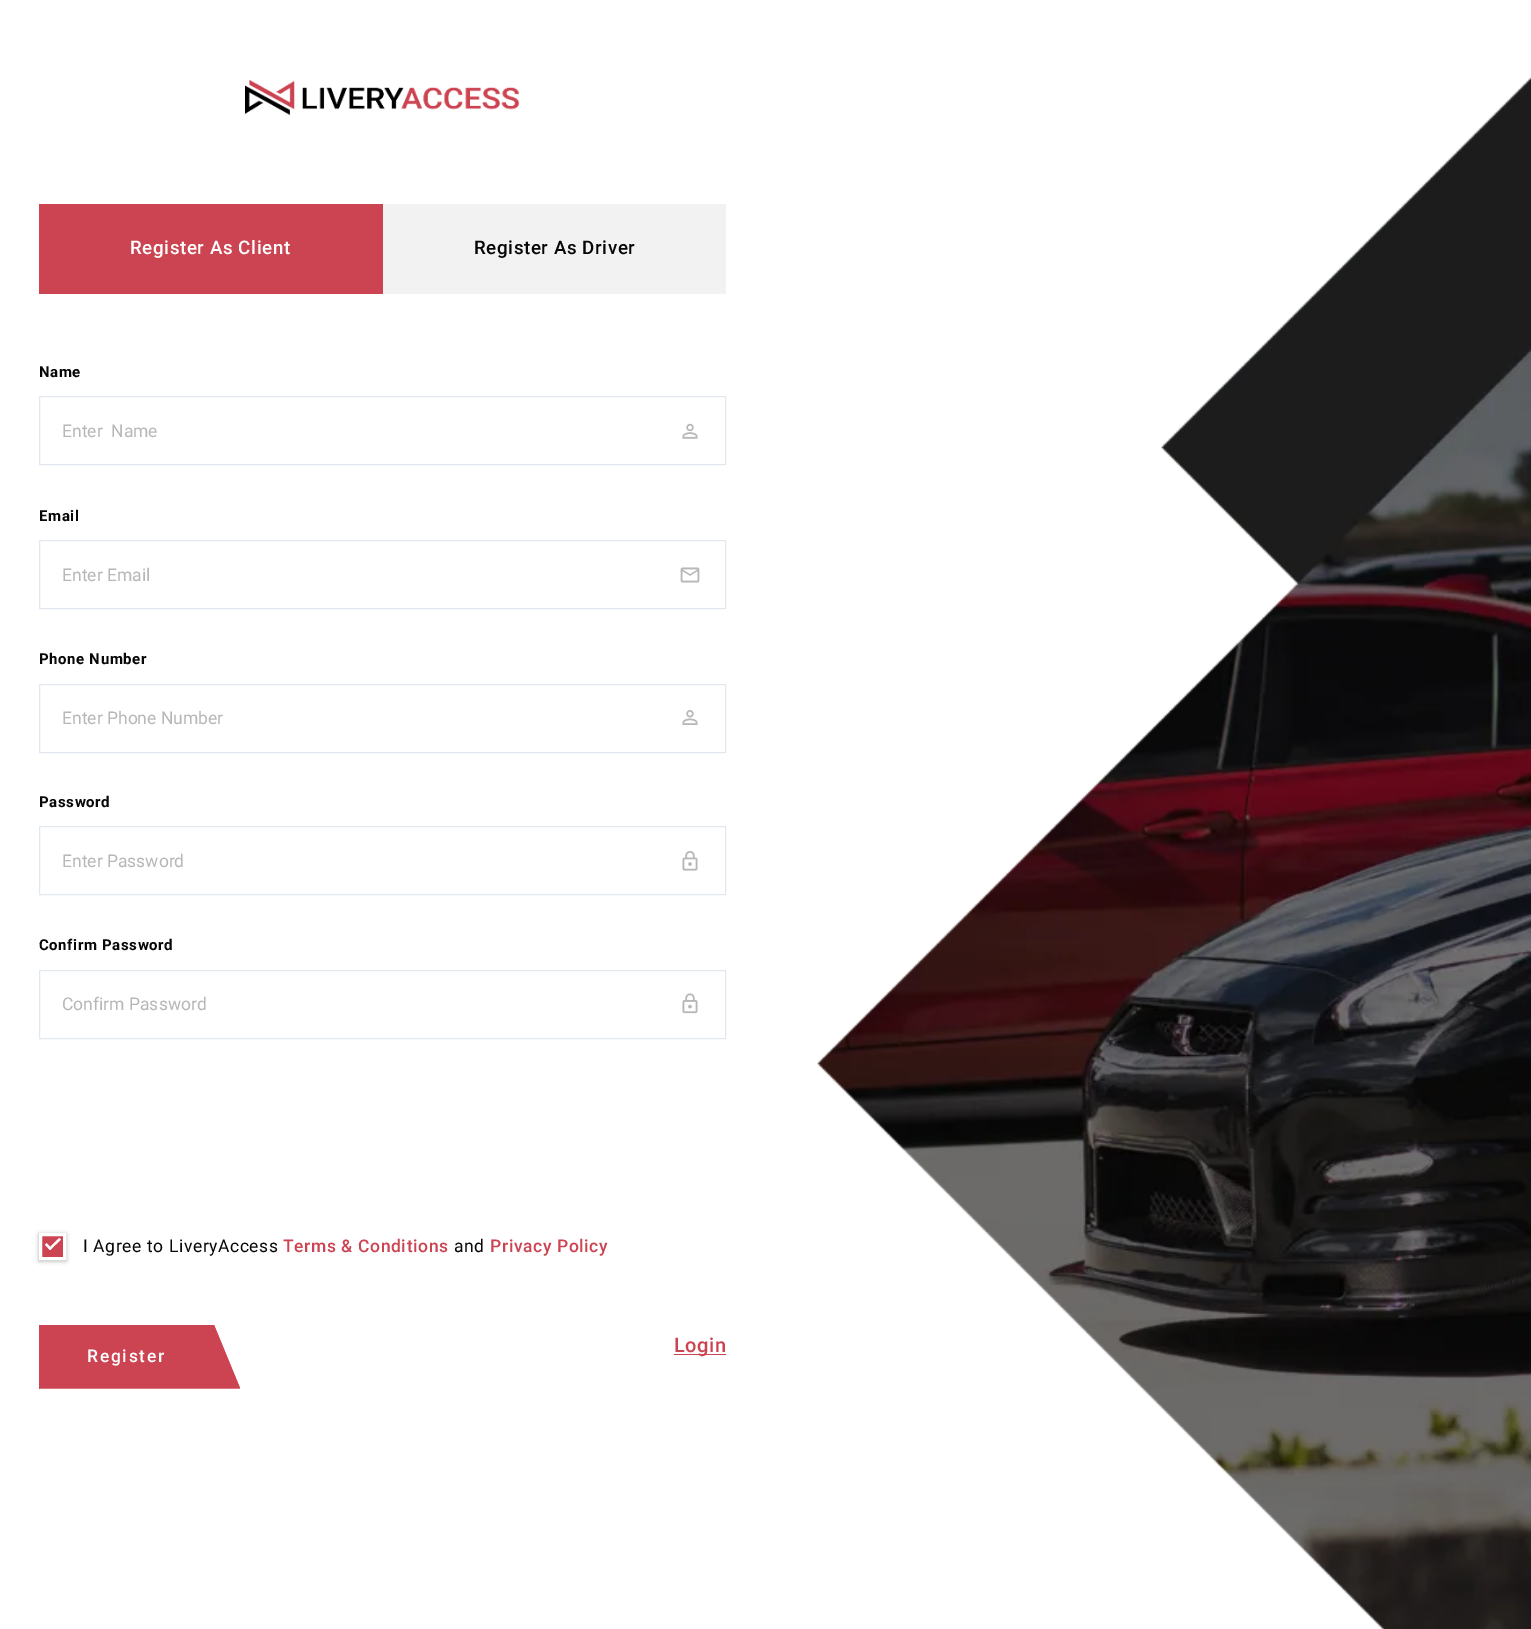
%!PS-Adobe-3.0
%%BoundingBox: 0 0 1531 1629
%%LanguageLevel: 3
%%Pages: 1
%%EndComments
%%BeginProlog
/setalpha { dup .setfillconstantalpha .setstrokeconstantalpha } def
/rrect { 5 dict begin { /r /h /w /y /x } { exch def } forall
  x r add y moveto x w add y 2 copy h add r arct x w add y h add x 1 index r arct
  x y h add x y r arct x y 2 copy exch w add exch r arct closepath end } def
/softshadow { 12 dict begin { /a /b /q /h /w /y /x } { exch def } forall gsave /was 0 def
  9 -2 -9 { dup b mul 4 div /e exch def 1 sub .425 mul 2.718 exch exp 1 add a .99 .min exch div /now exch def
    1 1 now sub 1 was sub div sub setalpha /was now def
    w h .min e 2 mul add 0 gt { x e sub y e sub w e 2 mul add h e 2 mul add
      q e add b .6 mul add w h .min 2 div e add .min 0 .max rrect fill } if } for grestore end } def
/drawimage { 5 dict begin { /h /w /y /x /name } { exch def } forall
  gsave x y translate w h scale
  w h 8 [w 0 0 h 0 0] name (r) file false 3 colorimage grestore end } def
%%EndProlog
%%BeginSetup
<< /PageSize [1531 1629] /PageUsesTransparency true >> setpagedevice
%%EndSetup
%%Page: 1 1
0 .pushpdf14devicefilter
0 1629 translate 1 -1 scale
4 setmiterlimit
1 setgray
0 0 1531 1629 rectfill
(images/1.raw) 817 76 714 1553 drawimage
(images/2.raw) 245 80 275 36 drawimage
0.8 0.267 0.322 setrgbcolor
39 204 344 90 rectfill
0.953 0.949 0.949 setrgbcolor
383 204 343 90 rectfill
0.886 0.91 0.937 setrgbcolor
39.5 396.5 686 68 rectstroke
(images/3.raw) 682 423 16 16 drawimage
39.5 540.5 686 68 rectstroke
(images/4.raw) 680 567 20 16 drawimage
39.5 684.5 686 68 rectstroke
(images/5.raw) 682 710 16 15 drawimage
39.5 826.5 686 68 rectstroke
(images/6.raw) 682 851 16 20 drawimage
39.5 970.5 686 68 rectstroke
(images/7.raw) 682 993 16 21 drawimage
0 setgray
39 1234 27 27 0 2 0.33 softshadow
0.8 0.267 0.322 setrgbcolor
newpath 40.5 1234.5 moveto 64.5 1234.5 lineto 64.5 1258.5 lineto 40.5 1258.5 lineto closepath gsave fill grestore
1 setgray
3 setlinewidth
stroke
newpath 59 1238 moveto 61 1239.5 lineto 50 1250 lineto 48.5 1248.5 lineto closepath fill
newpath 46.5 1243 moveto 52 1248.5 lineto 50 1250 lineto 45 1245 lineto closepath fill
0.8 0.267 0.322 setrgbcolor
39 1325 1 64 rectfill
gsave
40 1325 218 64 rectclip
newpath 12 1325 moveto 214 1325 lineto 240 1388 lineto 38 1388 lineto closepath fill
1.2 setlinewidth
newpath 13.5 1325.5 moveto 213.5 1325.5 lineto 239 1388 lineto 38.5 1388 lineto closepath stroke
grestore
674 1354 52 1 rectfill
/Roboto-Medium [18.75 0 0 -18.75 0 0] selectfont
1 setgray
130 254 moveto 0.6 0 (Register As Client) ashow
0.027 setgray
474 254 moveto 0.6 0 (Register As Driver) ashow
/Roboto-Bold [15 0 0 -15 0 0] selectfont
39 377 moveto 0.6 0 (Name) ashow
/Roboto-Regular [17.5 0 0 -17.5 0 0] selectfont
0.722 0.714 0.714 setrgbcolor
62 437 moveto (Enter  Name) show
/Roboto-Bold [15 0 0 -15 0 0] selectfont
0.027 setgray
39 521 moveto 0.6 0 (Email) ashow
/Roboto-Regular [17.5 0 0 -17.5 0 0] selectfont
0.722 0.714 0.714 setrgbcolor
62 581 moveto (Enter Email) show
/Roboto-Bold [15 0 0 -15 0 0] selectfont
0.027 setgray
39 664 moveto 0.6 0 (Phone Number) ashow
/Roboto-Regular [17.5 0 0 -17.5 0 0] selectfont
0.722 0.714 0.714 setrgbcolor
62 724 moveto (Enter Phone Number) show
/Roboto-Bold [15 0 0 -15 0 0] selectfont
0.027 setgray
39 807 moveto 0.6 0 (Password) ashow
/Roboto-Regular [17.5 0 0 -17.5 0 0] selectfont
0.722 0.714 0.714 setrgbcolor
62 867 moveto (Enter Password) show
/Roboto-Bold [15 0 0 -15 0 0] selectfont
0.027 setgray
39 950 moveto 0.6 0 (Confirm Password) ashow
/Roboto-Regular [17.5 0 0 -17.5 0 0] selectfont
0.722 0.714 0.714 setrgbcolor
62 1010 moveto (Confirm Password) show
0.027 setgray
83 1252 moveto 0.6 0 (I Agree to LiveryAccess) ashow
/Roboto-Medium [17.5 0 0 -17.5 0 0] selectfont
0.8 0.267 0.322 setrgbcolor
283 1252 moveto 0.6 0 (Terms & Conditions) ashow
/Roboto-Regular [17.5 0 0 -17.5 0 0] selectfont
0.027 setgray
454 1252 moveto 0.6 0 (and) ashow
/Roboto-Medium [17.5 0 0 -17.5 0 0] selectfont
0.8 0.267 0.322 setrgbcolor
490 1252 moveto 0.6 0 (Privacy Policy) ashow
1 setgray
87 1362 moveto 1.75 0 (Register) ashow
/Roboto-Medium [20 0 0 -20 0 0] selectfont
0.8 0.267 0.322 setrgbcolor
674 1352 moveto 0.6 0 (Login) ashow
.poppdf14devicefilter showpage
%%EOF
